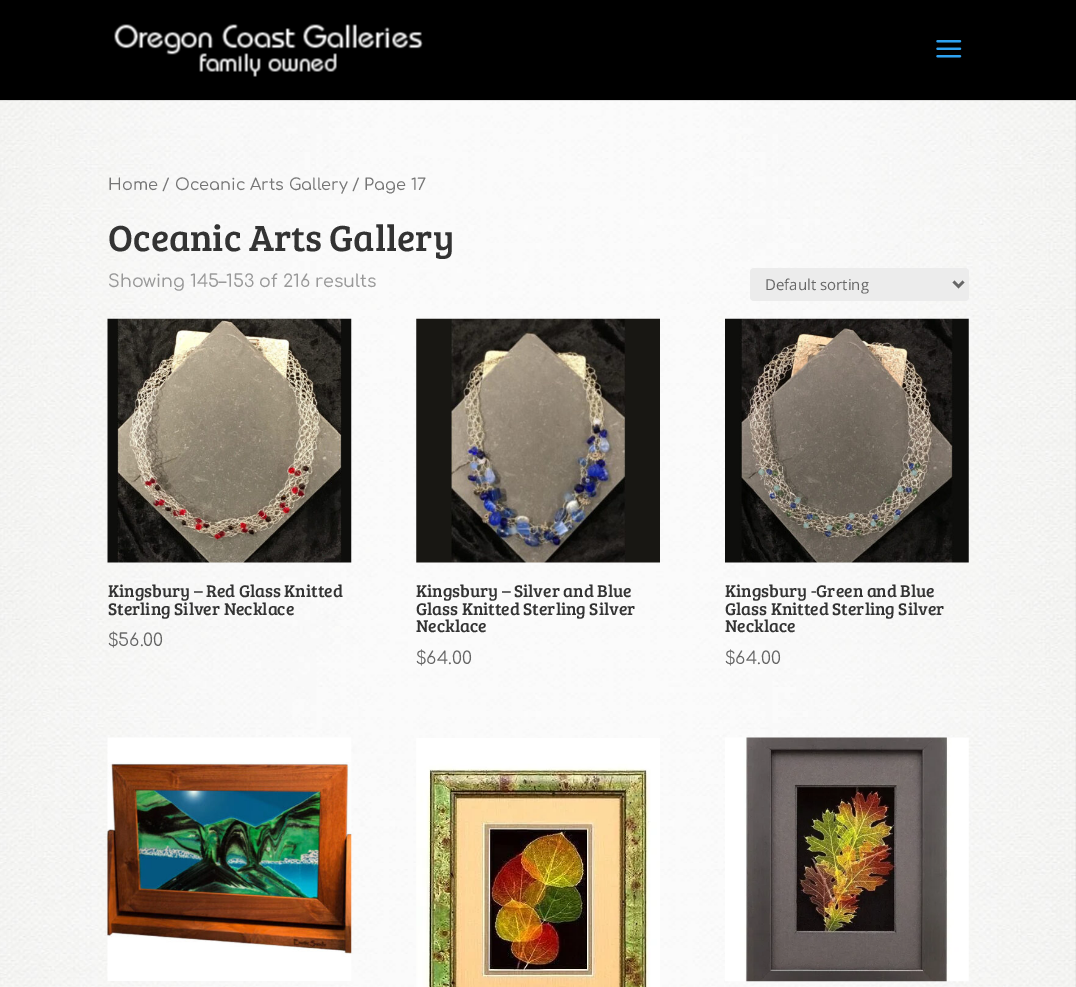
%!PS-Adobe-3.0
%%BoundingBox: 0 0 1076 987
%%LanguageLevel: 3
%%Pages: 1
%%EndComments
%%BeginProlog
/setalpha { dup .setfillconstantalpha .setstrokeconstantalpha } def
/rrect { 5 dict begin { /r /h /w /y /x } { exch def } forall
  x r add y moveto x w add y 2 copy h add r arct x w add y h add x 1 index r arct
  x y h add x y r arct x y 2 copy exch w add exch r arct closepath end } def
/drawimage { 5 dict begin { /h /w /y /x /name } { exch def } forall
  gsave x y translate w h scale
  w h 8 [w 0 0 h 0 0] name (r) file false 3 colorimage grestore end } def
%%EndProlog
%%BeginSetup
<< /PageSize [1076 987] /PageUsesTransparency true >> setpagedevice
%%EndSetup
%%Page: 1 1
0 .pushpdf14devicefilter
0 987 translate 1 -1 scale
4 setmiterlimit
1 setgray
0 0 1076 987 rectfill
(images/1.raw) 0 100 1076 887 drawimage
0.1 setalpha
0 setgray
0 100 1076 1 rectfill
1 setalpha
0 0 1076 100 rectfill
(images/2.raw) 114 24 309 53 drawimage
(images/3.raw) 936 40 26 18 drawimage
0.925 setgray
750 268 219 33 4 rrect fill
0.4 setgray
2.5 setlinewidth
newpath 953.5 281.5 moveto 958.5 286.5 lineto 963.5 281.5 lineto stroke
(images/4.raw) 107 318 245 245 drawimage
(images/5.raw) 416 318 244 245 drawimage
(images/6.raw) 725 318 244 245 drawimage
(images/7.raw) 107 737 245 244 drawimage
(images/8.raw) 416 738 244 249 drawimage
(images/9.raw) 725 737 244 245 drawimage
/Comfortaa-Medium [16.1 0 0 -16.1 0 0] selectfont
0.463 setgray
108 190 moveto (Home / Oceanic Arts Gallery / Page 17) show
/BreeSerif-Regular [37.5 0 0 -37.5 0 0] selectfont
0.2 setgray
108 251 moveto (Oceanic Arts Gallery) show
/Comfortaa-Medium [17.5 0 0 -17.5 0 0] selectfont
0.6 setgray
108 287 moveto (Showing 145–153 of 216 results) show
/OpenSans-Regular [15 0 0 -15 0 0] selectfont
0.4 setgray
765 290 moveto (Default sorting) show
/BreeSerif-Regular [17.5 0 0 -17.5 0 0] selectfont
0.2 setgray
108 597 moveto (Kingsbury – Red Glass Knitted) show
108 615 moveto (Sterling Silver Necklace) show
/Comfortaa-Regular [17.5 0 0 -17.5 0 0] selectfont
0.4 setgray
108 646 moveto ($56.00) show
/BreeSerif-Regular [17.5 0 0 -17.5 0 0] selectfont
0.2 setgray
416 597 moveto (Kingsbury – Silver and Blue) show
416 615 moveto (Glass Knitted Sterling Silver) show
416 632 moveto (Necklace) show
/Comfortaa-Regular [17.5 0 0 -17.5 0 0] selectfont
0.4 setgray
416 664 moveto ($64.00) show
/BreeSerif-Regular [17.5 0 0 -17.5 0 0] selectfont
0.2 setgray
725 597 moveto (Kingsbury -Green and Blue) show
725 615 moveto (Glass Knitted Sterling Silver) show
725 632 moveto (Necklace) show
/Comfortaa-Regular [17.5 0 0 -17.5 0 0] selectfont
0.4 setgray
725 664 moveto ($64.00) show
.poppdf14devicefilter showpage
%%EOF
